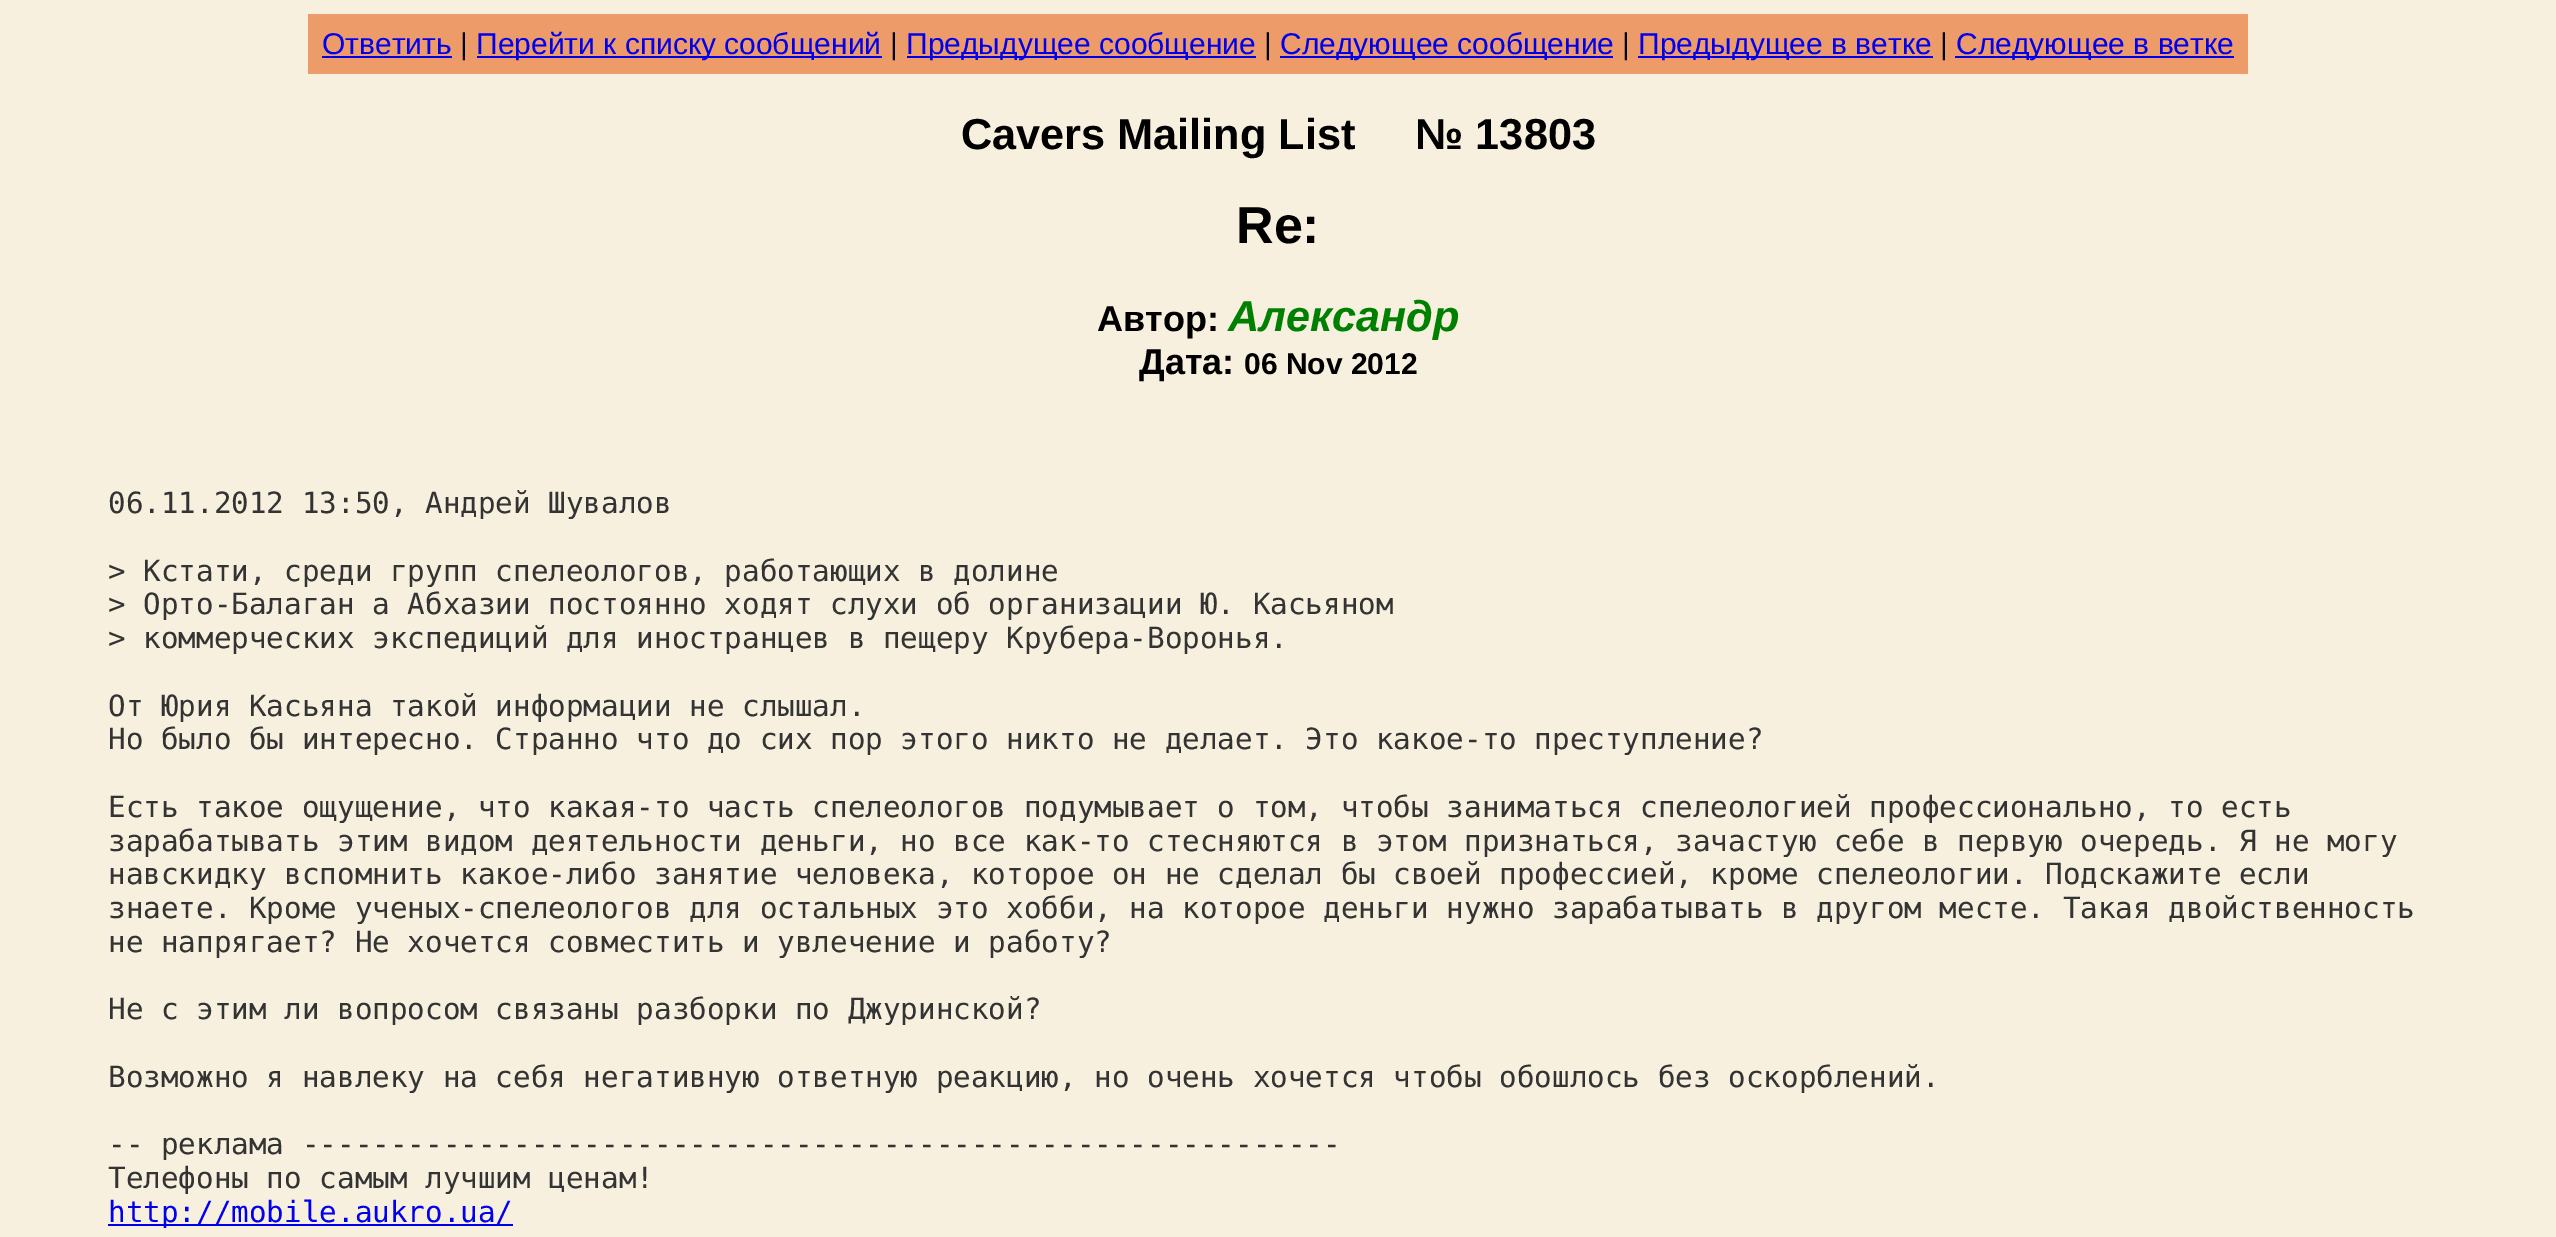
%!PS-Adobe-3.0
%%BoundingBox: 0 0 2556 1237
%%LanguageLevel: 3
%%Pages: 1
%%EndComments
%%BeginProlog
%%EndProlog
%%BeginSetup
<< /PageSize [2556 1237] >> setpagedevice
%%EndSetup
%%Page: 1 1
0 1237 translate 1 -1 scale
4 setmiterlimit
0.969 0.941 0.875 setrgbcolor
0 0 2556 1237 rectfill
0.933 0.608 0.416 setrgbcolor
308 14 1940 60 rectfill
0 0 0.933 setrgbcolor
322 56 130 2 rectfill
477 56 405 2 rectfill
907 56 349 2 rectfill
1280 56 333 2 rectfill
1638 56 295 2 rectfill
1955 56 279 2 rectfill
108 1224 405 2 rectfill
/LiberationSans-Regular [30 0 0 -30 0 0] selectfont
322 54 moveto (Ответить) show
0 setgray
460 54 moveto (|) show
0 0 0.933 setrgbcolor
476 54 moveto (Перейти к списку сообщений) show
0 setgray
890 54 moveto (|) show
0 0 0.933 setrgbcolor
906 54 moveto (Предыдущее сообщение) show
0 setgray
1264 54 moveto (|) show
0 0 0.933 setrgbcolor
1280 54 moveto (Следующее сообщение) show
0 setgray
1622 54 moveto (|) show
0 0 0.933 setrgbcolor
1638 54 moveto (Предыдущее в ветке) show
0 setgray
1940 54 moveto (|) show
0 0 0.933 setrgbcolor
1956 54 moveto (Следующее в ветке) show
/LiberationSans-Bold [43.25 0 0 -43.25 0 0] selectfont
0 setgray
961 149 moveto (Cavers Mailing List     № 13803) show
/LiberationSans-Bold [52 0 0 -52 0 0] selectfont
1236 243 moveto (Re:) show
/LiberationSans-Bold [36 0 0 -36 0 0] selectfont
1097 331 moveto (Автор:) show
/LiberationSans-BoldItalic [43.25 0 0 -43.25 0 0] selectfont
0 0.502 0 setrgbcolor
1228 331 moveto (Александр) show
/LiberationSans-Bold [36 0 0 -36 0 0] selectfont
0 setgray
1139 374 moveto (Дата:) show
/LiberationSans-Bold [30 0 0 -30 0 0] selectfont
1244 374 moveto (06 Nov 2012) show
/DejaVuSansMono-Regular [29.25 0 0 -29.25 0 0] selectfont
0.2 setgray
108 513 moveto (06.11.2012 13:50, Андрей Шувалов) show
108 581 moveto (> Кстати, среди групп спелеологов, работающих в долине) show
108 614 moveto (> Орто-Балаган а Абхазии постоянно ходят слухи об организации Ю. Касьяном) show
108 648 moveto (> коммерческих экспедиций для иностранцев в пещеру Крубера-Воронья.) show
108 716 moveto (От Юрия Касьяна такой информации не слышал.) show
108 749 moveto (Но было бы интересно. Странно что до сих пор этого никто не делает. Это какое-то преступление?) show
108 817 moveto (Есть такое ощущение, что какая-то часть спелеологов подумывает о том, чтобы заниматься спелеологией профессионально, то есть) show
108 851 moveto (зарабатывать этим видом деятельности деньги, но все как-то стесняются в этом признаться, зачастую себе в первую очередь. Я не могу) show
108 884 moveto (навскидку вспомнить какое-либо занятие человека, которое он не сделал бы своей профессией, кроме спелеологии. Подскажите если) show
108 918 moveto (знаете. Кроме ученых-спелеологов для остальных это хобби, на которое деньги нужно зарабатывать в другом месте. Такая двойственность) show
108 952 moveto (не напрягает? Не хочется совместить и увлечение и работу?) show
108 1019 moveto (Не с этим ли вопросом связаны разборки по Джуринской?) show
108 1087 moveto (Возможно я навлеку на себя негативную ответную реакцию, но очень хочется чтобы обошлось без оскорблений.) show
108 1154 moveto (-- реклама -----------------------------------------------------------) show
108 1188 moveto (Телефоны по самым лучшим ценам!) show
0 0 0.933 setrgbcolor
108 1222 moveto (http://mobile.aukro.ua/) show
showpage
%%EOF
